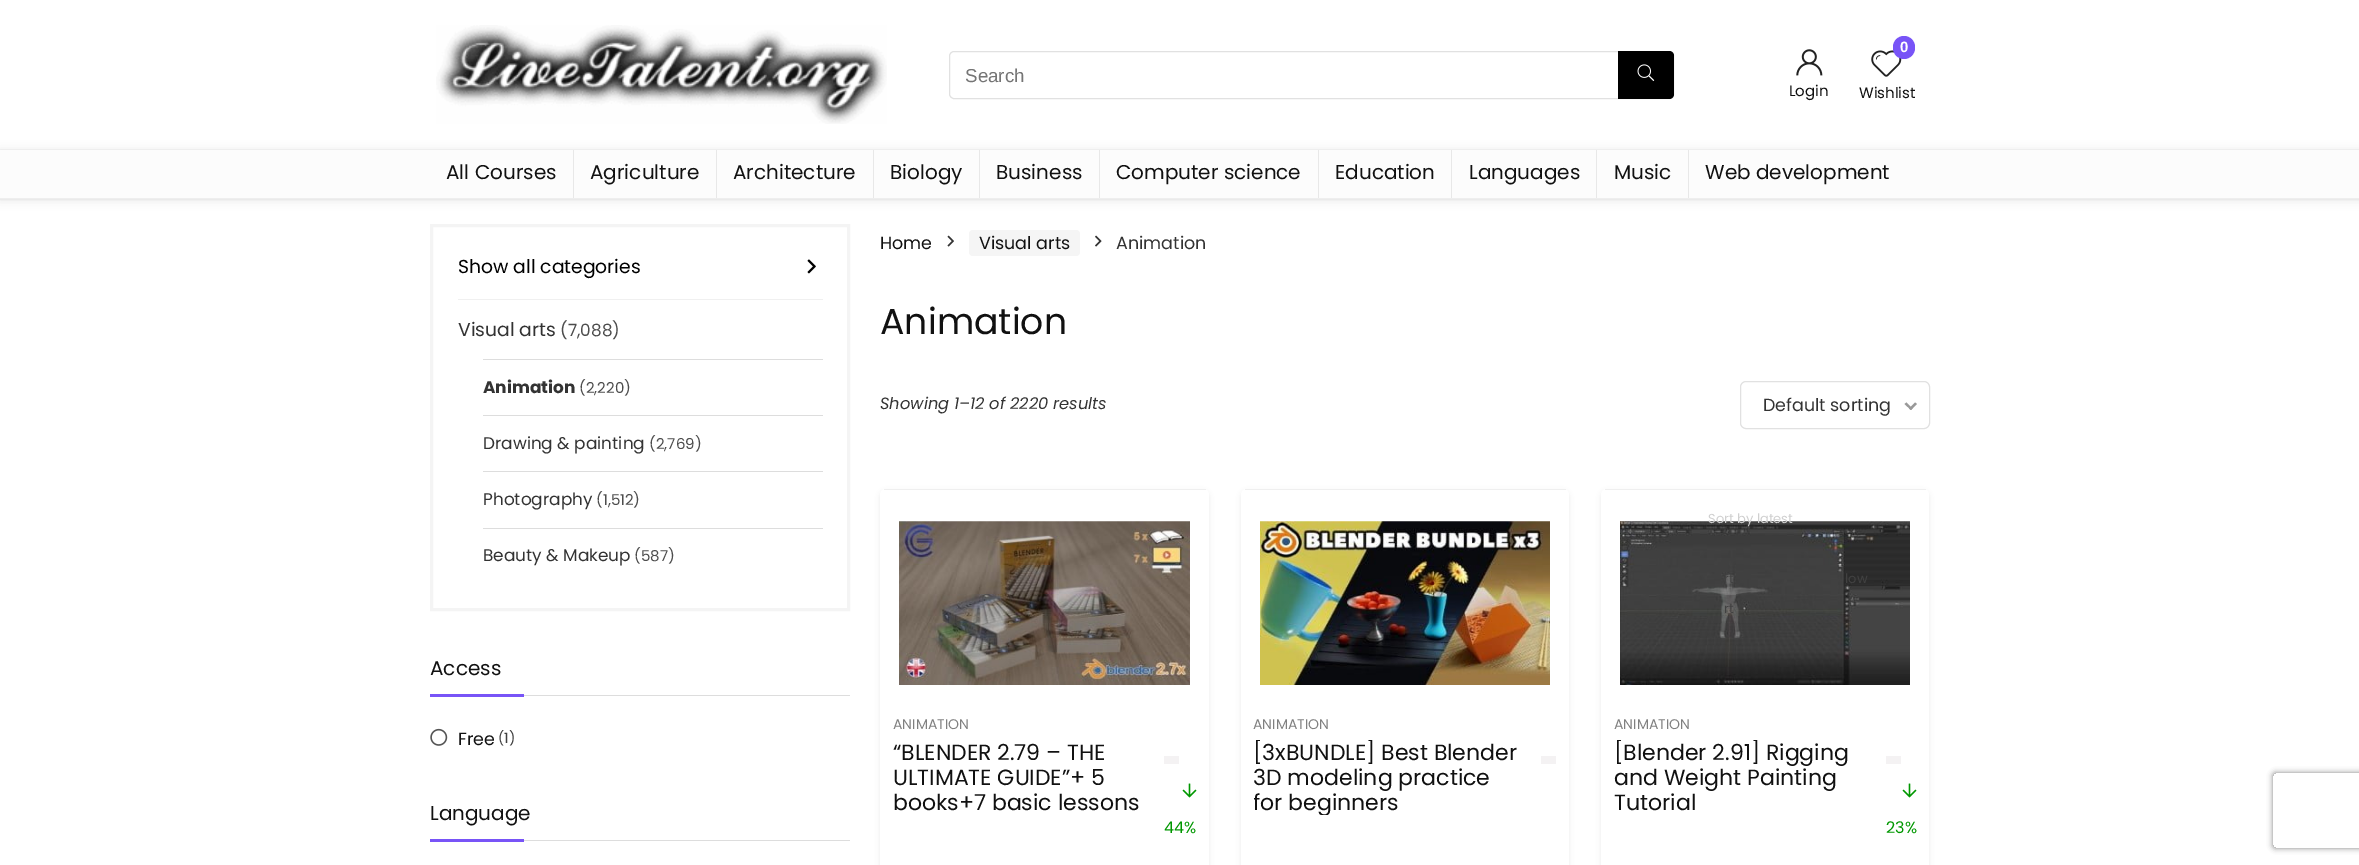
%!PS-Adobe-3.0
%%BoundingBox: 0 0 2359 865
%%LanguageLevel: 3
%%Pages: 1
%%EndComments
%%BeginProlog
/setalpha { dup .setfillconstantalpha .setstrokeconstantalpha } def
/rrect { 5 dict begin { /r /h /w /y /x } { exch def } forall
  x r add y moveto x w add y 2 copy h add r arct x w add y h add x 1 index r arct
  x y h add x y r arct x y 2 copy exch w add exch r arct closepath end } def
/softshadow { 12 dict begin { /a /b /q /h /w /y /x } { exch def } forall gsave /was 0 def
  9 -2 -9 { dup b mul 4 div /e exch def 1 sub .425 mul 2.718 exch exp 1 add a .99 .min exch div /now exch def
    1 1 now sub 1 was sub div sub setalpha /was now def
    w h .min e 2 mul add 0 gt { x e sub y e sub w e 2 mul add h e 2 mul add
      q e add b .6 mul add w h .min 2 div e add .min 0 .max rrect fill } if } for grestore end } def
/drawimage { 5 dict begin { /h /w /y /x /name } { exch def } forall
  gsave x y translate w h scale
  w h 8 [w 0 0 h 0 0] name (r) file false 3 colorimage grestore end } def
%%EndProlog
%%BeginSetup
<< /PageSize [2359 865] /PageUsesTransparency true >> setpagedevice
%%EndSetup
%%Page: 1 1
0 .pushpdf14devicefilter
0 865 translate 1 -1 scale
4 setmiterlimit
1 setgray
0 0 2359 865 rectfill
(images/1.raw) 436 25 451 99 drawimage
0.882 setgray
949.5 51.5 724 47 4.5 rrect stroke
0 setgray
newpath 1618 51 moveto 1669 51 lineto 1672 51 1674 53 1674 56 curveto 1674 94 lineto 1674 97 1672 99 1669 99 curveto 1618 99 lineto closepath fill
(images/2.raw) 1637 64 18 17 drawimage
(images/3.raw) 1796 49 27 27 drawimage
(images/4.raw) 1871 50 31 27 drawimage
0.471 0.329 0.969 setrgbcolor
1893 36 22 23 11 rrect fill
0.969 setgray
-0.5 149.5 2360 50 rectstroke
0 setgray
0 151 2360 49 0 5 0.1 softshadow
0.988 setgray
0 150 2359 48 rectfill
0.933 setgray
0 198 2359 1 rectfill
0.91 setgray
573 150 1 48 rectfill
716 150 1 48 rectfill
873 150 1 48 rectfill
979 150 1 48 rectfill
1099 150 1 48 rectfill
1318 150 1 48 rectfill
1451 150 1 48 rectfill
1596 150 1 48 rectfill
1688 150 1 48 rectfill
0.957 setgray
3 setlinewidth
431.5 225.5 417 384 rectstroke
0.941 setgray
458 299 365 1 rectfill
(images/5.raw) 807 259 9 15 drawimage
0.867 setgray
483 359 340 1 rectfill
483 415 340 1 rectfill
483 471 340 1 rectfill
483 528 340 1 rectfill
524 695 326 1 rectfill
0.471 0.329 0.969 setrgbcolor
430 694 94 3 rectfill
(images/6.raw) 430 728 18 18 drawimage
0.867 setgray
524 840 326 1 rectfill
0.471 0.329 0.969 setrgbcolor
430 839 94 3 rectfill
(images/7.raw) 947 235 7 12 drawimage
0.961 setgray
969 230 111 26 4 rrect fill
(images/8.raw) 1095 235 7 12 drawimage
0.882 setgray
1 setlinewidth
1740.5 381.5 189 47 5.5 rrect stroke
0.6 setgray
newpath 1915 402.5 moveto 1917 404 lineto 1911 410 lineto 1909 408.5 lineto closepath fill
newpath 1906.5 402.5 moveto 1912.5 408.5 lineto 1911 410 lineto 1904.5 404 lineto closepath fill
0 setgray
880 491 329 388 6 2.5 0.07 softshadow
1 setgray
880 489 329 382 6 rrect fill
0.937 setgray
884 489 322 1 rectfill
(images/9.raw) 899 521 291 164 drawimage
0.957 0.949 0.953 setrgbcolor
1164 756 15 8 rectfill
(images/10.raw) 1182 783 15 15 drawimage
0 setgray
1241 491 328 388 6 2.5 0.07 softshadow
1 setgray
1241 489 328 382 6 rrect fill
0.937 setgray
1245 489 321 1 rectfill
(images/11.raw) 1260 521 290 164 drawimage
0.957 0.949 0.953 setrgbcolor
1541 756 15 8 rectfill
0 setgray
1601 491 328 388 6 2.5 0.07 softshadow
1 setgray
1601 489 328 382 6 rrect fill
0.937 setgray
1605 489 321 1 rectfill
(images/12.raw) 1620 521 290 164 drawimage
0.957 0.949 0.953 setrgbcolor
1886 756 15 8 rectfill
(images/10.raw) 1902 783 15 15 drawimage
gsave
newpath 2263 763 moveto 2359 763 lineto 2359 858 lineto 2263 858 lineto closepath 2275.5 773 moveto 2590.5 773 lineto 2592 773 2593 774 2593 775.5 curveto 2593 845.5 lineto 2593 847 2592 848 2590.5 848 curveto 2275.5 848 lineto 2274 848 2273 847 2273 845.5 curveto 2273 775.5 lineto 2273 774 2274 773 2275.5 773 curveto closepath eoclip newpath
0.502 setgray
2273 773 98 75 2.5 3 1 softshadow
grestore
/LiberationSans-Regular [18.75 0 0 -18.75 0 0] selectfont
0.459 setgray
965 82 moveto (Search) show
/Poppins-Regular [15 0 0 -15 0 0] selectfont
0.067 setgray
1789 96 moveto (Login) show
/LiberationSans-Bold [15 0 0 -15 0 0] selectfont
1 setgray
1900 52 moveto (0) show
/Poppins-Regular [15 0 0 -15 0 0] selectfont
0.067 setgray
1859 98 moveto (Wishlist) show
/Poppins-Regular [20 0 0 -20 0 0] selectfont
446 179 moveto (All Courses) show
590 179 moveto (Agriculture) show
733 179 moveto (Architecture) show
890 179 moveto (Biology) show
996 179 moveto (Business) show
1116 179 moveto (Computer science) show
1335 179 moveto (Education) show
1469 179 moveto (Languages) show
1614 179 moveto (Music) show
1705 179 moveto (Web development) show
/Poppins-Regular [18.75 0 0 -18.75 0 0] selectfont
0 setgray
458 273 moveto (Show all categories) show
0.2 setgray
458 336 moveto (Visual arts) show
/Poppins-Regular [16.9 0 0 -16.9 0 0] selectfont
0.302 setgray
560 336 moveto (\(7,088\)) show
/Poppins-Bold [16.9 0 0 -16.9 0 0] selectfont
0.2 setgray
483 393 moveto (Animation) show
/Poppins-Regular [15 0 0 -15 0 0] selectfont
0.302 setgray
579 393 moveto (\(2,220\)) show
/Poppins-Regular [16.9 0 0 -16.9 0 0] selectfont
0.2 setgray
483 449 moveto (Drawing & painting) show
/Poppins-Regular [15 0 0 -15 0 0] selectfont
0.302 setgray
649 449 moveto (\(2,769\)) show
/Poppins-Regular [16.9 0 0 -16.9 0 0] selectfont
0.2 setgray
483 505 moveto (Photography) show
/Poppins-Regular [15 0 0 -15 0 0] selectfont
0.302 setgray
596 505 moveto (\(1,512\)) show
/Poppins-Regular [16.9 0 0 -16.9 0 0] selectfont
0.2 setgray
483 561 moveto (Beauty & Makeup) show
/Poppins-Regular [15 0 0 -15 0 0] selectfont
0.302 setgray
634 561 moveto (\(587\)) show
/Poppins-Regular [20 0 0 -20 0 0] selectfont
0.067 setgray
430 675 moveto (Access) show
/Poppins-Regular [17.5 0 0 -17.5 0 0] selectfont
458 745 moveto (Free) show
/Poppins-Regular [14 0 0 -14 0 0] selectfont
0.255 setgray
498 743 moveto (\(1\)) show
/Poppins-Regular [20 0 0 -20 0 0] selectfont
0.067 setgray
430 820 moveto (Language) show
/Poppins-Regular [17.5 0 0 -17.5 0 0] selectfont
880 249 moveto (Home) show
979 249 moveto (Visual arts) show
0.2 setgray
1116 249 moveto (Animation) show
/Poppins-Regular [36.25 0 0 -36.25 0 0] selectfont
0.067 setgray
880 334 moveto (Animation) show
/Poppins-Italic [16.25 0 0 -16.25 0 0] selectfont
0.2 setgray
880 409 moveto (Showing 1–12 of 2220 results) show
/Poppins-Regular [17.5 0 0 -17.5 0 0] selectfont
1763 411 moveto (Default sorting) show
/Poppins-Regular [13 0 0 -13 0 0] selectfont
0.816 setgray
1708 523 moveto (Sort by latest) show
0.255 setgray
1724 583 moveto (rt) show
1845 583 moveto (low) show
1724 613 moveto (rt) show
/Poppins-Regular [14 0 0 -14 0 0] selectfont
0.502 setgray
893 729 moveto (ANIMATION) show
/Poppins-Regular [22 0 0 -22 0 0] selectfont
0.067 setgray
893 760 moveto (“BLENDER 2.79 – THE) show
893 785 moveto (ULTIMATE GUIDE”+ 5) show
893 810 moveto (books+7 basic lessons) show
/Poppins-Regular [16 0 0 -16 0 0] selectfont
0 0.592 0 setrgbcolor
1164 833 moveto (44%) show
/Poppins-Regular [14 0 0 -14 0 0] selectfont
0.502 setgray
1253 729 moveto (ANIMATION) show
gsave
1254 740 269 75 rectclip
/Poppins-Regular [22 0 0 -22 0 0] selectfont
0.067 setgray
1253 760 moveto ([3xBUNDLE] Best Blender) show
grestore
/Poppins-Regular [22 0 0 -22 0 0] selectfont
0.067 setgray
1253 785 moveto (3D modeling practice) show
gsave
1254 740 269 75 rectclip
1253 810 moveto (for beginners) show
grestore
/Poppins-Regular [14 0 0 -14 0 0] selectfont
0.502 setgray
1614 729 moveto (ANIMATION) show
gsave
1614 740 254 75 rectclip
/Poppins-Regular [22 0 0 -22 0 0] selectfont
0.067 setgray
1614 760 moveto ([Blender 2.91] Rigging) show
grestore
/Poppins-Regular [22 0 0 -22 0 0] selectfont
0.067 setgray
1614 785 moveto (and Weight Painting) show
1614 810 moveto (Tutorial) show
/Poppins-Regular [16 0 0 -16 0 0] selectfont
0 0.592 0 setrgbcolor
1886 833 moveto (23%) show
.poppdf14devicefilter showpage
%%EOF
